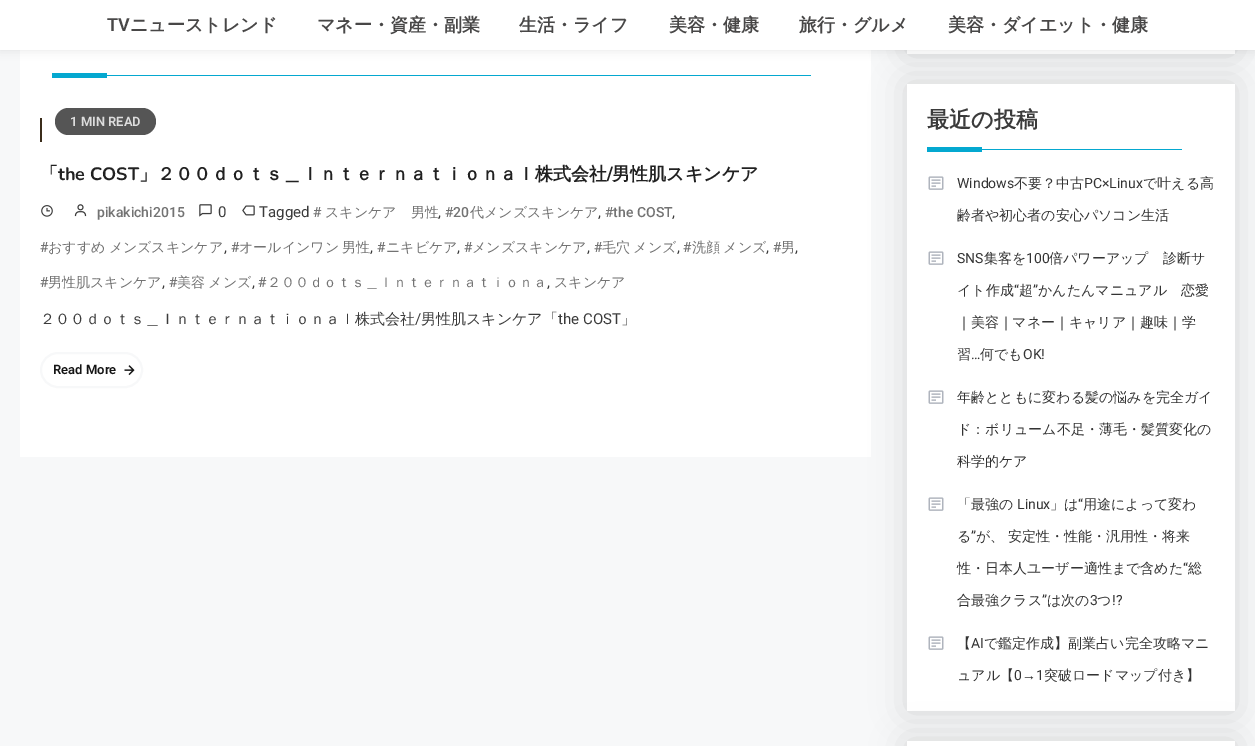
%!PS-Adobe-3.0
%%BoundingBox: 0 0 1255 746
%%LanguageLevel: 3
%%Pages: 1
%%EndComments
%%BeginProlog
/setalpha { dup .setfillconstantalpha .setstrokeconstantalpha } def
/rrect { 5 dict begin { /r /h /w /y /x } { exch def } forall
  x r add y moveto x w add y 2 copy h add r arct x w add y h add x 1 index r arct
  x y h add x y r arct x y 2 copy exch w add exch r arct closepath end } def
/softshadow { 12 dict begin { /a /b /q /h /w /y /x } { exch def } forall gsave /was 0 def
  9 -2 -9 { dup b mul 4 div /e exch def 1 sub .425 mul 2.718 exch exp 1 add a .99 .min exch div /now exch def
    1 1 now sub 1 was sub div sub setalpha /was now def
    w h .min e 2 mul add 0 gt { x e sub y e sub w e 2 mul add h e 2 mul add
      q e add b .6 mul add w h .min 2 div e add .min 0 .max rrect fill } if } for grestore end } def
/drawimage { 5 dict begin { /h /w /y /x /name } { exch def } forall
  gsave x y translate w h scale
  w h 8 [w 0 0 h 0 0] name (r) file false 3 colorimage grestore end } def
%%EndProlog
%%BeginSetup
<< /PageSize [1255 746] /PageUsesTransparency true >> setpagedevice
%%EndSetup
%%Page: 1 1
0 .pushpdf14devicefilter
0 746 translate 1 -1 scale
4 setmiterlimit
0.969 0.973 0.976 setrgbcolor
0 0 1255 746 rectfill
1 setgray
20 50 851 407 rectfill
0 setgray
907 -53 328 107 0 17.5 0.13 softshadow
1 setgray
907 50 328 4 rectfill
0 setgray
0 0 1255 50 0 5 0.1 softshadow
907 84 328 627 0 17.5 0.13 softshadow
1 setgray
0 0 1255 50 rectfill
0.016 0.659 0.816 setrgbcolor
52 73 55 5 rectfill
107 75 704 1 rectfill
0.8 setalpha
0.169 setgray
55 108 101 27 13.5 rrect fill
1 setalpha
0.231 0.176 0.106 setrgbcolor
40 118 2 24 rectfill
(images/1.raw) 199 204 13 13 drawimage
(images/2.raw) 242 205 13 11 drawimage
(images/3.raw) 41 205 12 12 drawimage
(images/4.raw) 74 204 13 13 drawimage
0.969 0.973 0.976 setrgbcolor
2 setlinewidth
41 353 101 34 17 rrect stroke
(images/5.raw) 124 365 11 11 drawimage
1 setgray
907 84 328 627 rectfill
0.016 0.659 0.816 setrgbcolor
927 147 55 5 rectfill
982 149 200 1 rectfill
(images/6.raw) 928 176 16 14 drawimage
(images/6.raw) 928 251 16 14 drawimage
(images/6.raw) 928 390 16 14 drawimage
(images/6.raw) 928 497 16 14 drawimage
(images/6.raw) 928 636 16 14 drawimage
0 setgray
907 741 328 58 0 17.5 0.13 softshadow
1 setgray
907 741 328 5 rectfill
/Roboto-SemiBold [18 0 0 -18 0 0] selectfont
0.282 0.278 0.278 setrgbcolor
107 31 moveto (TV) show
/WenQuanYiZenHei-Bold [18 0 0 -18 0 0] selectfont
130 31 moveto (ニューストレンド) show
317 31 moveto (マネー・資産・副業) show
519 31 moveto (生活・ライフ) show
669 31 moveto (美容・健康) show
799 31 moveto (旅行・グルメ) show
948 31 moveto (美容・ダイエット・健康) show
/Roboto-SemiBold [13 0 0 -13 0 0] selectfont
0.867 setgray
70 126 moveto (1 MIN READ) show
/WenQuanYiZenHei-Bold [18 0 0 -18 0 0] selectfont
0.129 setgray
40 180 moveto (「) show
139 180 moveto (」２００ｄｏｔｓ＿Ｉｎｔｅｒｎａｔｉｏｎａｌ株式会社 男性肌スキンケア) show
/Nunito-Bold [18 0 0 -18 0 0] selectfont
58 180 moveto (the COST) show
607 180 moveto (/) show
/Roboto-Regular [15 0 0 -15 0 0] selectfont
0.231 setgray
259 217 moveto (Tagged) show
/Roboto-Medium [14 0 0 -14 0 0] selectfont
0.451 setgray
313 217 moveto (#) show
/WenQuanYiZenHei-Medium [14 0 0 -14 0 0] selectfont
325 217 moveto (スキンケア　男性) show
/Roboto-Regular [15 0 0 -15 0 0] selectfont
0.231 setgray
438 217 moveto (,) show
/Roboto-Medium [14 0 0 -14 0 0] selectfont
0.451 setgray
445 217 moveto (#20) show
/WenQuanYiZenHei-Medium [14 0 0 -14 0 0] selectfont
470 217 moveto (代メンズスキンケア) show
/Roboto-Regular [15 0 0 -15 0 0] selectfont
0.231 setgray
598 217 moveto (,) show
672 217 moveto (,) show
/Roboto-Medium [14 0 0 -14 0 0] selectfont
0.451 setgray
605 217 moveto (#the COST) show
40 252 moveto (#) show
/WenQuanYiZenHei-Medium [14 0 0 -14 0 0] selectfont
48 252 moveto -1 0 32 (おすすめ メンズスキンケア) widthshow
/Roboto-Regular [15 0 0 -15 0 0] selectfont
0.231 setgray
224 252 moveto (,) show
/Roboto-Medium [14 0 0 -14 0 0] selectfont
0.451 setgray
231 252 moveto (#) show
/WenQuanYiZenHei-Medium [14 0 0 -14 0 0] selectfont
239 252 moveto -1 0 32 (オールインワン 男性) widthshow
/Roboto-Regular [15 0 0 -15 0 0] selectfont
0.231 setgray
370 252 moveto (,) show
/Roboto-Medium [14 0 0 -14 0 0] selectfont
0.451 setgray
377 252 moveto (#) show
/WenQuanYiZenHei-Medium [14 0 0 -14 0 0] selectfont
386 252 moveto (ニキビケア) show
/Roboto-Regular [15 0 0 -15 0 0] selectfont
0.231 setgray
457 252 moveto (,) show
/Roboto-Medium [14 0 0 -14 0 0] selectfont
0.451 setgray
464 252 moveto (#) show
/WenQuanYiZenHei-Medium [14 0 0 -14 0 0] selectfont
472 252 moveto (メンズスキンケア) show
/Roboto-Regular [15 0 0 -15 0 0] selectfont
0.231 setgray
587 252 moveto (,) show
/Roboto-Medium [14 0 0 -14 0 0] selectfont
0.451 setgray
594 252 moveto (#) show
/Roboto-Regular [15 0 0 -15 0 0] selectfont
0.231 setgray
677 252 moveto (,) show
/WenQuanYiZenHei-Medium [14 0 0 -14 0 0] selectfont
0.451 setgray
602 252 moveto -1 0 32 (毛穴 メンズ) widthshow
/Roboto-Medium [14 0 0 -14 0 0] selectfont
683 252 moveto (#) show
/WenQuanYiZenHei-Medium [14 0 0 -14 0 0] selectfont
692 252 moveto -1 0 32 (洗顔 メンズ) widthshow
/Roboto-Regular [15 0 0 -15 0 0] selectfont
0.231 setgray
766 252 moveto (,) show
/Roboto-Medium [14 0 0 -14 0 0] selectfont
0.451 setgray
773 252 moveto (#) show
/WenQuanYiZenHei-Medium [14 0 0 -14 0 0] selectfont
781 252 moveto (男) show
/Roboto-Regular [15 0 0 -15 0 0] selectfont
0.231 setgray
795 252 moveto (,) show
/Roboto-Medium [14 0 0 -14 0 0] selectfont
0.451 setgray
40 287 moveto (#) show
/WenQuanYiZenHei-Medium [14 0 0 -14 0 0] selectfont
48 287 moveto (男性肌スキンケア) show
/Roboto-Regular [15 0 0 -15 0 0] selectfont
0.231 setgray
162 287 moveto (,) show
/Roboto-Medium [14 0 0 -14 0 0] selectfont
0.451 setgray
169 287 moveto (#) show
/Roboto-Regular [15 0 0 -15 0 0] selectfont
0.231 setgray
252 287 moveto (,) show
/WenQuanYiZenHei-Medium [14 0 0 -14 0 0] selectfont
0.451 setgray
177 287 moveto -1 0 32 (美容 メンズ) widthshow
/Roboto-Medium [14 0 0 -14 0 0] selectfont
258 287 moveto (#) show
/WenQuanYiZenHei-Medium [14 0 0 -14 0 0] selectfont
267 287 moveto (２００ｄｏｔｓ＿Ｉｎｔｅｒｎａｔｉｏｎａ) show
/Roboto-Regular [15 0 0 -15 0 0] selectfont
0.231 setgray
547 287 moveto (,) show
/WenQuanYiZenHei-Medium [14 0 0 -14 0 0] selectfont
0.451 setgray
554 287 moveto (スキンケア) show
/Roboto-Medium [14 0 0 -14 0 0] selectfont
97 217 moveto (pikakichi2015) show
/Roboto-Regular [15 0 0 -15 0 0] selectfont
0.231 setgray
218 217 moveto (0) show
/WenQuanYiZenHei-Medium [15 0 0 -15 0 0] selectfont
40 324 moveto (２００ｄｏｔｓ＿Ｉｎｔｅｒｎａｔｉｏｎａｌ株式会社) show
/Roboto-Regular [15 0 0 -15 0 0] selectfont
415 324 moveto (/) show
/WenQuanYiZenHei-Medium [15 0 0 -15 0 0] selectfont
421 324 moveto (男性肌スキンケア「) show
/Roboto-Regular [15 0 0 -15 0 0] selectfont
558 324 moveto (the COST) show
/WenQuanYiZenHei-Medium [15 0 0 -15 0 0] selectfont
621 324 moveto (」) show
/Roboto-SemiBold [13 0 0 -13 0 0] selectfont
0.082 setgray
53 374 moveto (Read More) show
/WenQuanYiZenHei-Bold [22 0 0 -22 0 0] selectfont
0.231 setgray
927 127 moveto (最近の投稿) show
/Roboto-Regular [14 0 0 -14 0 0] selectfont
0.2 setgray
957 188 moveto (Windows) show
/WenQuanYiZenHei-Medium [14 0 0 -14 0 0] selectfont
1014 188 moveto (不要？中古) show
/Roboto-Regular [14 0 0 -14 0 0] selectfont
1084 188 moveto (PC×Linux) show
/WenQuanYiZenHei-Medium [14 0 0 -14 0 0] selectfont
1143 188 moveto (で叶える高) show
957 220 moveto (齢者や初心者の安心パソコン生活) show
/Roboto-Regular [14 0 0 -14 0 0] selectfont
957 263 moveto (SNS) show
/WenQuanYiZenHei-Medium [14 0 0 -14 0 0] selectfont
984 263 moveto (集客を) show
/Roboto-Regular [14 0 0 -14 0 0] selectfont
1026 263 moveto (100) show
/WenQuanYiZenHei-Medium [14 0 0 -14 0 0] selectfont
1049 263 moveto (倍パワーアップ　診断サ) show
957 295 moveto (イト作成) show
/Roboto-Regular [14 0 0 -14 0 0] selectfont
1014 295 moveto (“) show
/WenQuanYiZenHei-Medium [14 0 0 -14 0 0] selectfont
1019 295 moveto (超) show
/Roboto-Regular [14 0 0 -14 0 0] selectfont
1033 295 moveto (”) show
/WenQuanYiZenHei-Medium [14 0 0 -14 0 0] selectfont
1038 295 moveto (かんたんマニュアル　恋愛) show
957 327 moveto (｜美容｜マネー｜キャリア｜趣味｜学) show
957 359 moveto (習) show
/Roboto-Regular [14 0 0 -14 0 0] selectfont
971 359 moveto (…) show
/WenQuanYiZenHei-Medium [14 0 0 -14 0 0] selectfont
980 359 moveto (何でも) show
/Roboto-Regular [14 0 0 -14 0 0] selectfont
1023 359 moveto (OK!) show
/WenQuanYiZenHei-Medium [14 0 0 -14 0 0] selectfont
957 402 moveto (年齢とともに変わる髪の悩みを完全ガイ) show
957 434 moveto (ド：ボリューム不足・薄毛・髪質変化の) show
957 466 moveto (科学的ケア) show
957 509 moveto (「最強の) show
/Roboto-Regular [14 0 0 -14 0 0] selectfont
1017 509 moveto (Linux) show
/WenQuanYiZenHei-Medium [14 0 0 -14 0 0] selectfont
1050 509 moveto (」は) show
/Roboto-Regular [14 0 0 -14 0 0] selectfont
1078 509 moveto (“) show
/WenQuanYiZenHei-Medium [14 0 0 -14 0 0] selectfont
1083 509 moveto (用途によって変わ) show
957 541 moveto (る) show
/Roboto-Regular [14 0 0 -14 0 0] selectfont
971 541 moveto (”) show
/WenQuanYiZenHei-Medium [14 0 0 -14 0 0] selectfont
976 541 moveto -1 0 32 (が、 安定性・性能・汎用性・将来) widthshow
957 573 moveto (性・日本人ユーザー適性まで含めた) show
/Roboto-Regular [14 0 0 -14 0 0] selectfont
1183 573 moveto (“) show
/WenQuanYiZenHei-Medium [14 0 0 -14 0 0] selectfont
1188 573 moveto (総) show
957 605 moveto (合最強クラス) show
/Roboto-Regular [14 0 0 -14 0 0] selectfont
1042 605 moveto (”) show
/WenQuanYiZenHei-Medium [14 0 0 -14 0 0] selectfont
1047 605 moveto (は次の) show
/Roboto-Regular [14 0 0 -14 0 0] selectfont
1090 605 moveto (3) show
/WenQuanYiZenHei-Medium [14 0 0 -14 0 0] selectfont
1097 605 moveto (つ) show
/Roboto-Regular [14 0 0 -14 0 0] selectfont
1112 605 moveto (!?) show
/WenQuanYiZenHei-Medium [14 0 0 -14 0 0] selectfont
957 648 moveto (【) show
/Roboto-Regular [14 0 0 -14 0 0] selectfont
971 648 moveto (AI) show
/WenQuanYiZenHei-Medium [14 0 0 -14 0 0] selectfont
984 648 moveto (で鑑定作成】副業占い完全攻略マニ) show
957 680 moveto (ュアル【) show
/Roboto-Regular [14 0 0 -14 0 0] selectfont
1014 680 moveto (0) show
/LiberationSerif-Regular [14 0 0 -14 0 0] selectfont
1022 680 moveto (→) show
/Roboto-Regular [14 0 0 -14 0 0] selectfont
1036 680 moveto (1) show
/WenQuanYiZenHei-Medium [14 0 0 -14 0 0] selectfont
1044 680 moveto (突破ロードマップ付き】) show
.poppdf14devicefilter showpage
%%EOF
